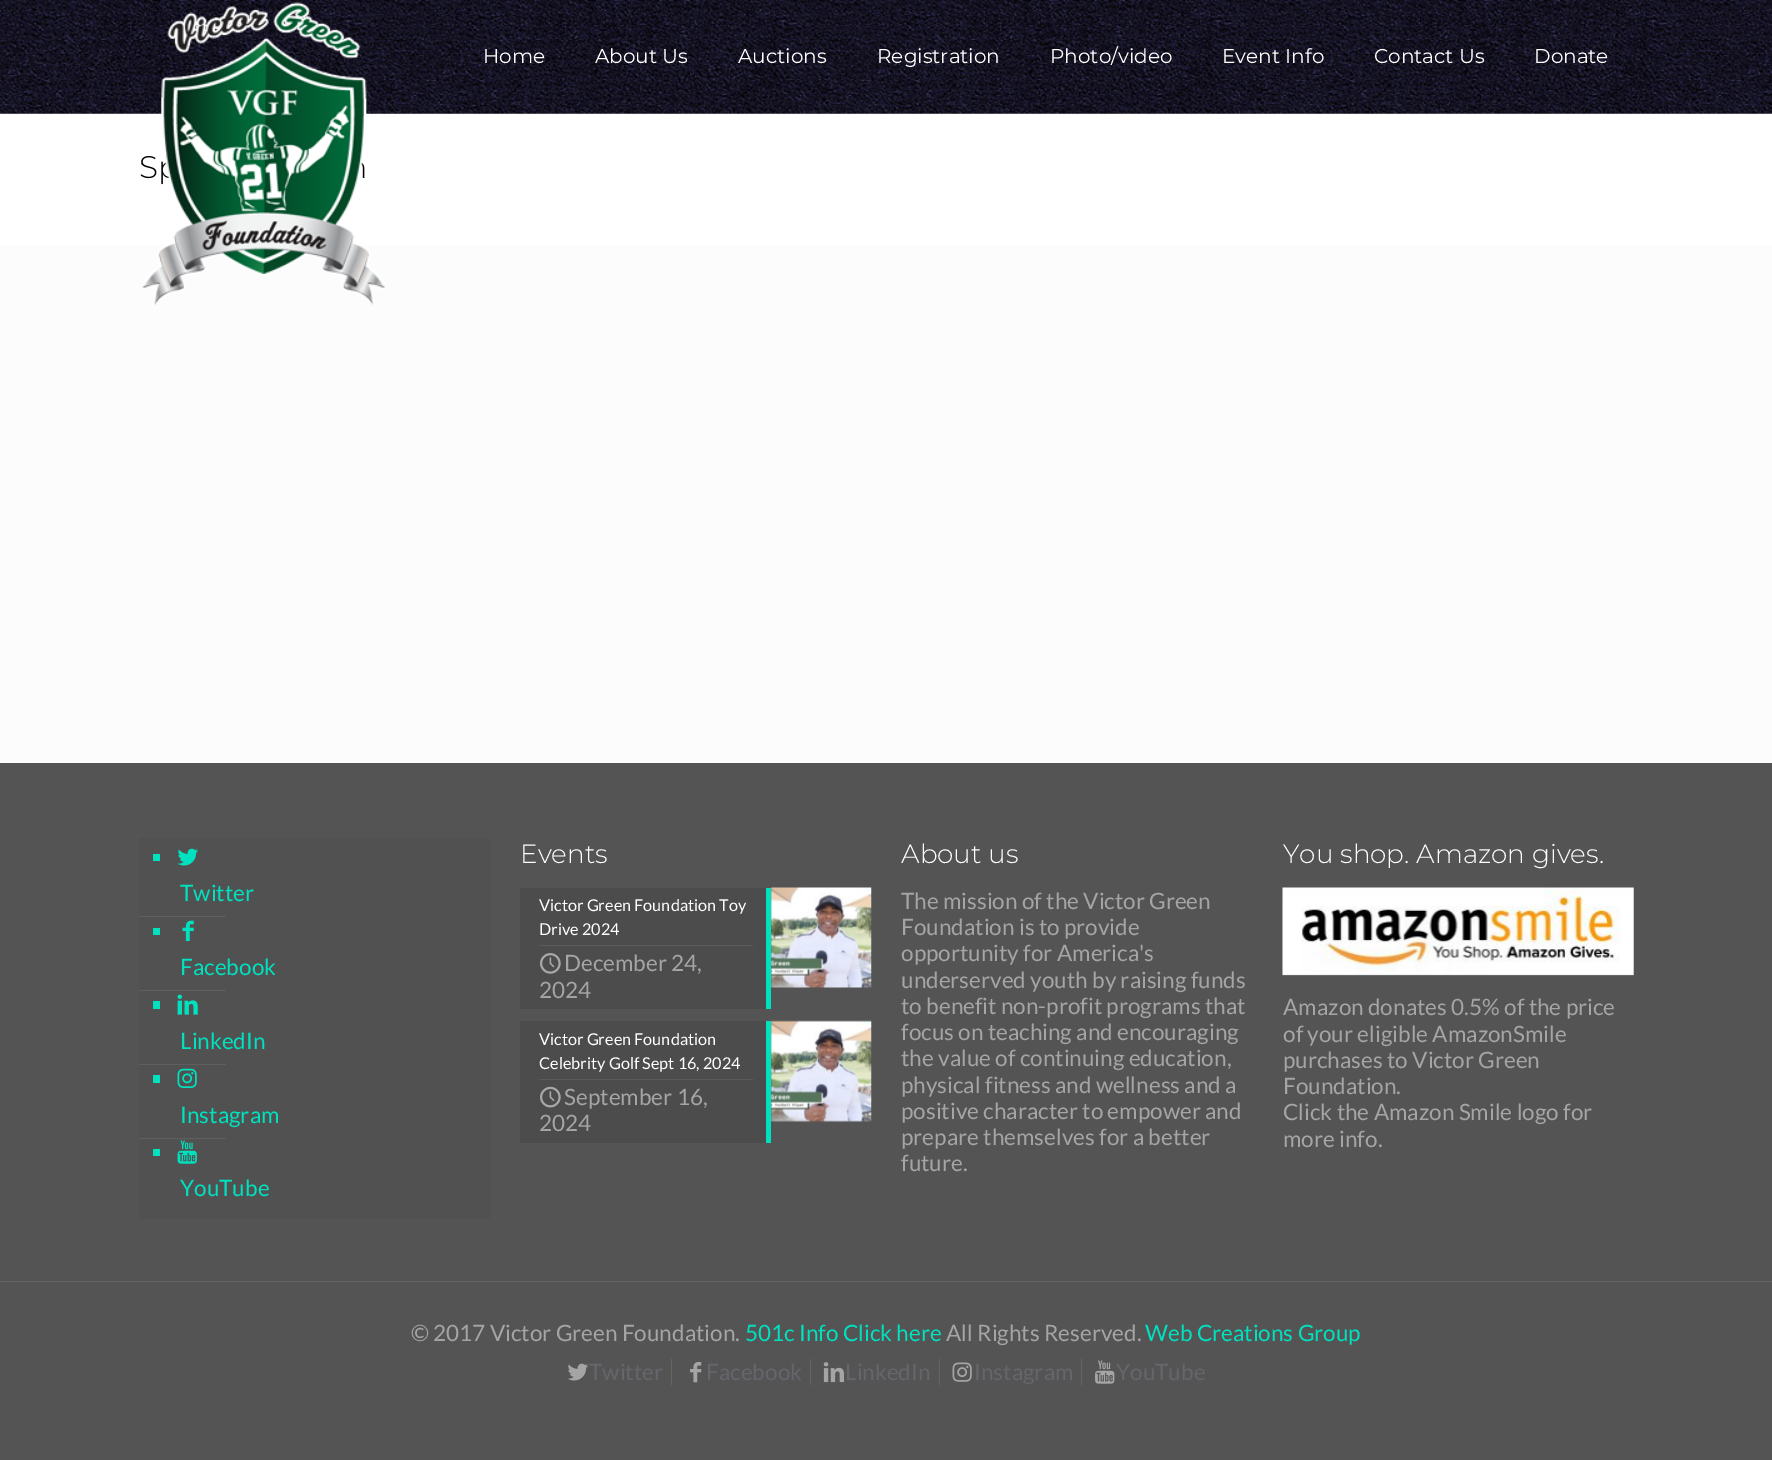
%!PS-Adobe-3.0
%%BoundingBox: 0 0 1772 1460
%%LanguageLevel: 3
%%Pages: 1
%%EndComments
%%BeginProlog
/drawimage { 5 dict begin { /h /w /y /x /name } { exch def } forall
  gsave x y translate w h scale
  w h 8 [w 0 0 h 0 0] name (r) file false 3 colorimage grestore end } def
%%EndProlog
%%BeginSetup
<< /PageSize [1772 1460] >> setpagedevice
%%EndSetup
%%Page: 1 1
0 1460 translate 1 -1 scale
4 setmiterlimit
0.988 setgray
0 0 1772 1460 rectfill
(images/1.raw) 0 0 1772 114 drawimage
1 setgray
0 114 1772 131 rectfill
0.329 setgray
0 763 1772 697 rectfill
0.318 setgray
139 838 351 381 rectfill
0 0.886 0.749 setrgbcolor
153 854 7 7 rectfill
(images/3.raw) 177 848 21 18 drawimage
0.373 setgray
139 916 87 1 rectfill
0 0.886 0.749 setrgbcolor
153 928 7 7 rectfill
(images/4.raw) 182 920 12 21 drawimage
0.373 setgray
139 990 87 1 rectfill
0 0.886 0.749 setrgbcolor
153 1001 7 8 rectfill
(images/5.raw) 177 994 21 21 drawimage
0.373 setgray
139 1064 87 1 rectfill
0 0.886 0.749 setrgbcolor
153 1075 7 8 rectfill
(images/6.raw) 177 1068 20 20 drawimage
0.373 setgray
139 1138 87 1 rectfill
0 0.886 0.749 setrgbcolor
153 1149 7 7 rectfill
(images/7.raw) 177 1140 20 24 drawimage
0.298 setgray
520 888 246 121 rectfill
0.353 setgray
539 945 214 1 rectfill
0 0.886 0.749 setrgbcolor
766 888 5 121 rectfill
(images/8.raw) 540 953 21 21 drawimage
(images/9.raw) 771 887 101 101 drawimage
0.298 setgray
520 1021 246 122 rectfill
0.353 setgray
539 1079 214 1 rectfill
0 0.886 0.749 setrgbcolor
766 1021 5 122 rectfill
(images/10.raw) 540 1086 21 22 drawimage
(images/11.raw) 771 1020 101 102 drawimage
(images/12.raw) 1282 887 352 89 drawimage
0.396 setgray
0 1281 1772 1 rectfill
671 1359 1 26 rectfill
(images/13.raw) 567 1363 21 18 drawimage
810 1359 1 26 rectfill
(images/14.raw) 690 1362 12 21 drawimage
939 1359 1 26 rectfill
(images/15.raw) 823 1362 21 21 drawimage
1081 1359 1 26 rectfill
(images/16.raw) 952 1362 20 20 drawimage
(images/17.raw) 1095 1360 20 24 drawimage
/Montserrat-Regular [20 0 0 -20 0 0] selectfont
1 setgray
483 63 moveto (Home) show
595 63 moveto (About Us) show
738 63 moveto (Auctions) show
877 63 moveto (Registration) show
1050 63 moveto (Photo/video) show
1222 63 moveto (Event Info) show
1374 63 moveto (Contact Us) show
1534 63 moveto (Donate) show
/Montserrat-Light [31 0 0 -31 0 0] selectfont
0 setgray
139 178 moveto (Sp) show
(images/2.raw) 142 2 243 303 drawimage
/Lato-Regular [22.5 0 0 -22.5 0 0] selectfont
0 0.886 0.749 setrgbcolor
180 901 moveto (Twitter) show
180 975 moveto (Facebook) show
180 1049 moveto (LinkedIn) show
180 1123 moveto (Instagram) show
180 1196 moveto (YouTube) show
/Montserrat-Light [26.25 0 0 -26.25 0 0] selectfont
1 setgray
520 863 moveto (Events) show
/Lato-Regular [16.25 0 0 -16.25 0 0] selectfont
539 911 moveto (Victor Green Foundation Toy) show
539 935 moveto (Drive 2024) show
/Lato-Regular [22.5 0 0 -22.5 0 0] selectfont
0.647 0.647 0.651 setrgbcolor
564 971 moveto (December 24,) show
539 998 moveto (2024) show
/Lato-Regular [16.25 0 0 -16.25 0 0] selectfont
1 setgray
539 1045 moveto (Victor Green Foundation) show
539 1069 moveto (Celebrity Golf Sept 16, 2024) show
/Lato-Regular [22.5 0 0 -22.5 0 0] selectfont
0.647 0.647 0.651 setrgbcolor
564 1105 moveto (September 16,) show
539 1131 moveto (2024) show
/Montserrat-Light [26.25 0 0 -26.25 0 0] selectfont
1 setgray
901 863 moveto (About us) show
/Lato-Regular [22.5 0 0 -22.5 0 0] selectfont
0.647 0.647 0.651 setrgbcolor
901 909 moveto (The mission of the Victor Green) show
901 935 moveto (Foundation is to provide) show
901 961 moveto (opportunity for America's) show
901 988 moveto (underserved youth by raising funds) show
901 1014 moveto (to benefit non-profit programs that) show
901 1040 moveto (focus on teaching and encouraging) show
901 1066 moveto (the value of continuing education,) show
901 1093 moveto (physical fitness and wellness and a) show
901 1119 moveto (positive character to empower and) show
901 1145 moveto (prepare themselves for a better) show
901 1171 moveto (future.) show
/Montserrat-Light [26.25 0 0 -26.25 0 0] selectfont
1 setgray
1283 863 moveto (You shop. Amazon gives.) show
/Lato-Regular [22.5 0 0 -22.5 0 0] selectfont
0.647 0.647 0.651 setrgbcolor
1283 1015 moveto (Amazon donates 0.5% of the price) show
1283 1042 moveto (of your eligible AmazonSmile) show
1283 1068 moveto (purchases to Victor Green) show
1283 1094 moveto (Foundation.) show
1283 1120 moveto (Click the Amazon Smile logo for) show
1283 1147 moveto (more info.) show
411 1341 moveto (© 2017 Victor Green Foundation.) show
0 0.886 0.749 setrgbcolor
745 1341 moveto (501c Info Click here) show
0.647 0.647 0.651 setrgbcolor
946 1341 moveto (All Rights Reserved.) show
0 0.886 0.749 setrgbcolor
1145 1341 moveto (Web Creations Group) show
0.396 0.4 0.424 setrgbcolor
589 1380 moveto (Twitter) show
706 1380 moveto (Facebook) show
845 1380 moveto (LinkedIn) show
974 1380 moveto (Instagram) show
1116 1380 moveto (YouTube) show
showpage
%%EOF
